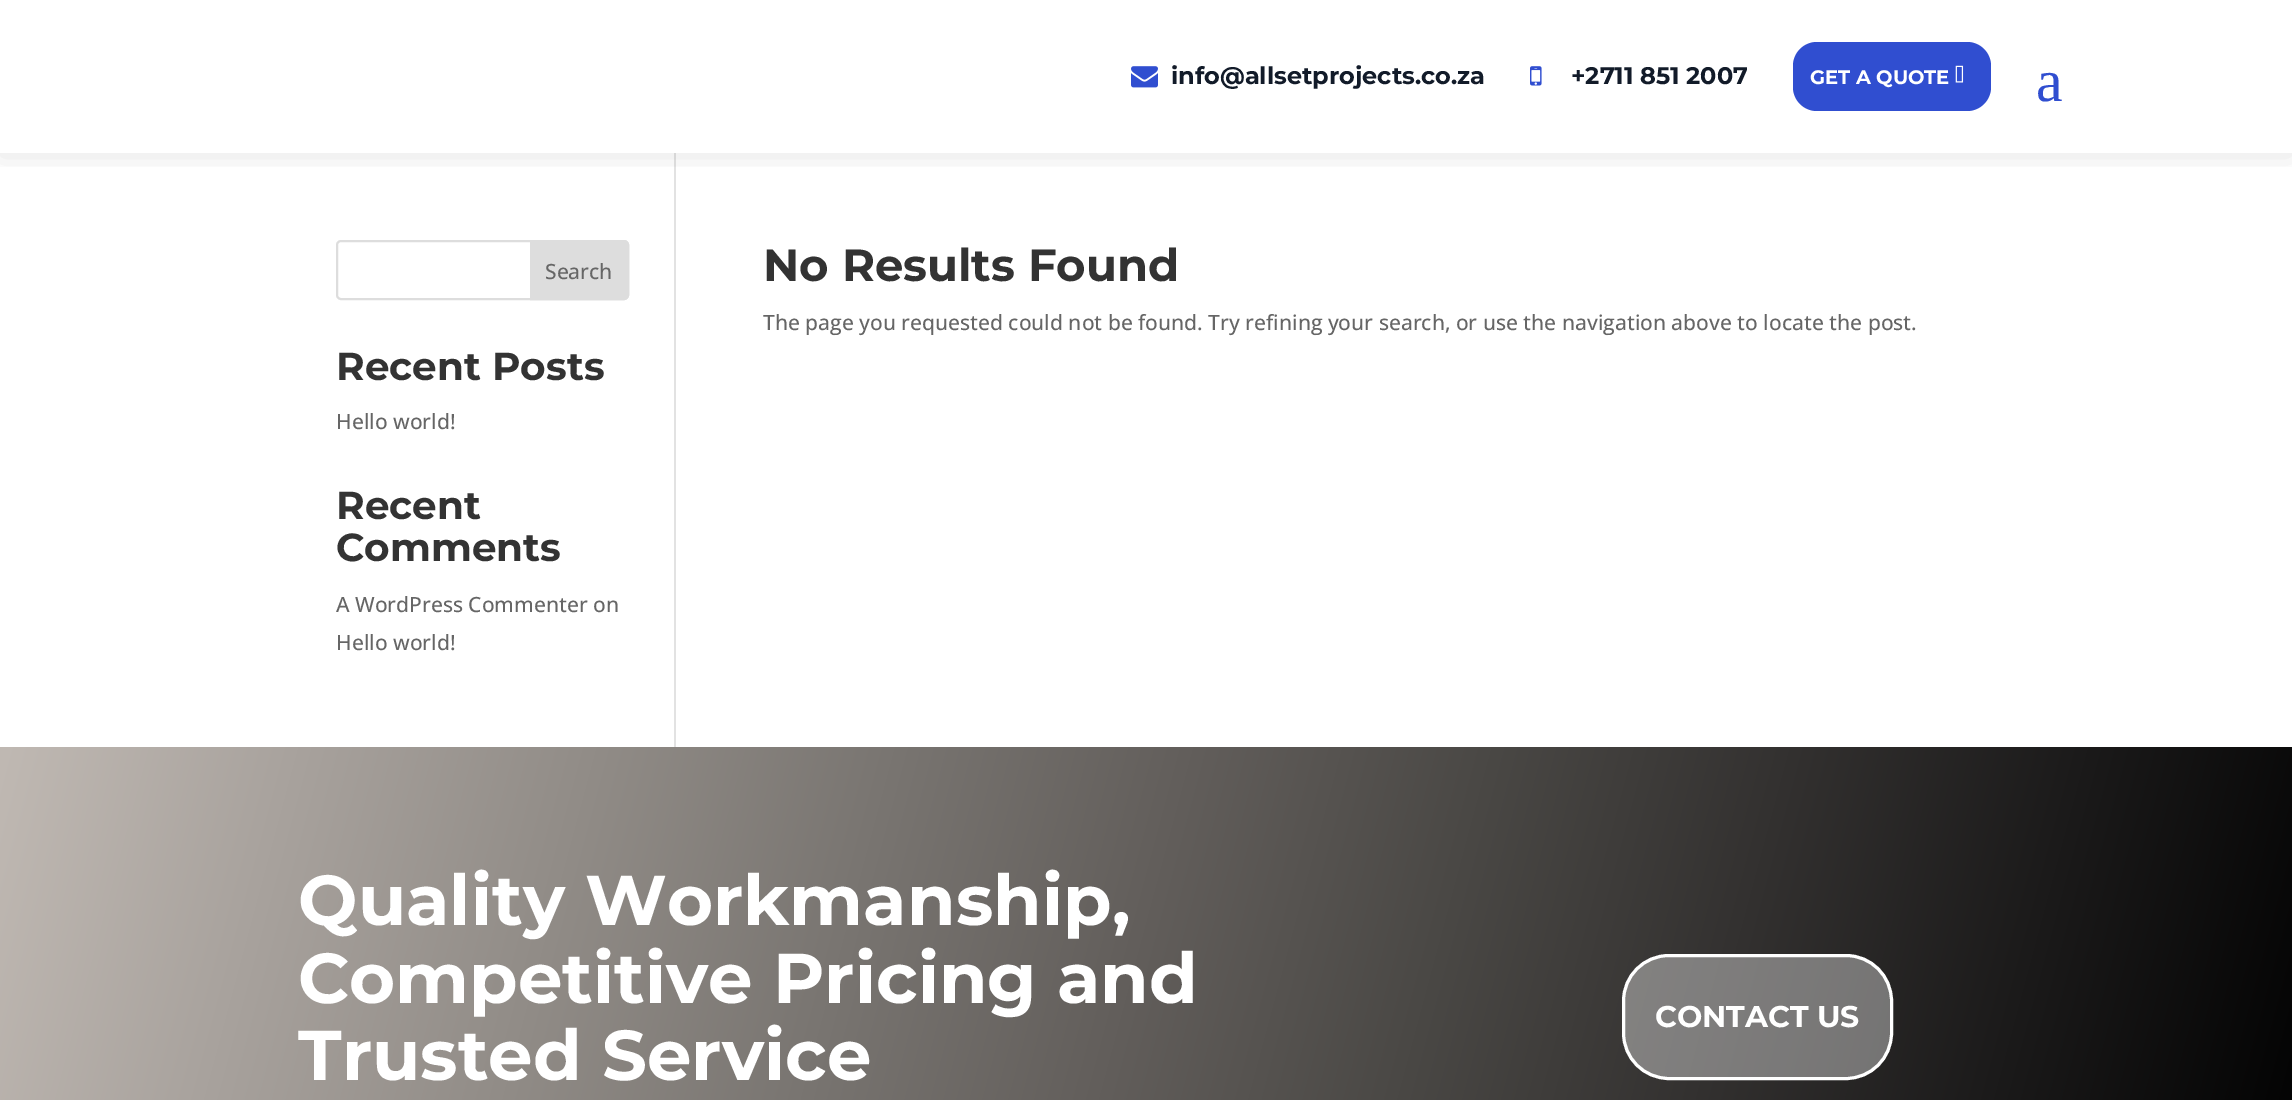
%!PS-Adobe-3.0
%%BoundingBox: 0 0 2292 1100
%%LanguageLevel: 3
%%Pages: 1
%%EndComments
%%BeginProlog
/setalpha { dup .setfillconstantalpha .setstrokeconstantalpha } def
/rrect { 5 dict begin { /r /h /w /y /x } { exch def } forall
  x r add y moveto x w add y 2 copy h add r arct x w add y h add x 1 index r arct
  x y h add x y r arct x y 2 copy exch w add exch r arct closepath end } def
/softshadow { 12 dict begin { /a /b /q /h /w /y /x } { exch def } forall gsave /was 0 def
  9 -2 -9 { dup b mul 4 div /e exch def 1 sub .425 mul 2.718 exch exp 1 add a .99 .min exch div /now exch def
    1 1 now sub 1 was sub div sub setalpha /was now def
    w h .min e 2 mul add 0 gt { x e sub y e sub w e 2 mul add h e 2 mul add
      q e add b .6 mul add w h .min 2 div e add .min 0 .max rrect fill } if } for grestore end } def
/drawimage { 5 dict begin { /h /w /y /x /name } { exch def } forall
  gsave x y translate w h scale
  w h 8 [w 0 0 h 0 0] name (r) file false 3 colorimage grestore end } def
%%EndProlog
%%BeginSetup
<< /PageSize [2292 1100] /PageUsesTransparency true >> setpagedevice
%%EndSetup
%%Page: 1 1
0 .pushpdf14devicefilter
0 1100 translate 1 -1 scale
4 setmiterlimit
1 setgray
0 0 2292 1100 rectfill
0.886 setgray
674 153 2 594 rectfill
gsave
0 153 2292 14 rectclip
0 setgray
0 3 2292 153 0 13.5 0.1 softshadow
grestore
(images/1.raw) 1131 66 27 22 drawimage
(images/2.raw) 1530 66 12 20 drawimage
0.188 0.306 0.816 setrgbcolor
1793 42 198 69 24 rrect fill
(images/3.raw) 1955 65 9 18 drawimage
0.867 setgray
2 setlinewidth
337 241 291 58 4 rrect stroke
newpath 531 241 moveto 624 241 lineto 626 241 628 243 628 245 curveto 628 295 lineto 628 297 626 299 624 299 curveto 531 299 lineto closepath gsave fill grestore
stroke
gsave newpath 0 747 moveto 2292 747 lineto 2292 1100 lineto 0 1100 lineto closepath clip newpath
<< /ShadingType 2 /ColorSpace /DeviceRGB /Coords [9 712 2283 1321] /Extend [true true] /Function << /FunctionType 2 /Domain [0 1] /C0 [0.753 0.725 0.702] /C1 [0 0 0] /N 1 >> >> shfill grestore
0.37 setalpha
1 setgray
1623.5 955.5 268 123 45.5 rrect fill
1 setalpha
3 setlinewidth
1623.5 955.5 268 123 45.5 rrect stroke
/Montserrat-Bold [24 0 0 -24 0 0] selectfont
0.071 0.106 0.161 setrgbcolor
1171 84 moveto (info@allsetprojects.co.za) show
1571 84 moveto (+2711 851 2007) show
/Montserrat-Bold [19.5 0 0 -19.5 0 0] selectfont
1 setgray
1810 84 moveto (GET A QUOTE) show
/LiberationSerif-Regular [60 0 0 -60 0 0] selectfont
0.188 0.306 0.816 setrgbcolor
2036 101 moveto (a) show
/OpenSans-Medium [21 0 0 -21 0 0] selectfont
0.4 setgray
545 279 moveto (Search) show
/Montserrat-Bold [39 0 0 -39 0 0] selectfont
0.2 setgray
336 380 moveto (Recent Posts) show
/OpenSans-Medium [21 0 0 -21 0 0] selectfont
0.4 setgray
336 429 moveto (Hello world!) show
/Montserrat-Bold [39 0 0 -39 0 0] selectfont
0.2 setgray
336 519 moveto (Recent) show
336 561 moveto (Comments) show
/OpenSans-Medium [21 0 0 -21 0 0] selectfont
0.4 setgray
336 612 moveto (A WordPress Commenter on) show
336 650 moveto (Hello world!) show
/Montserrat-Bold [45 0 0 -45 0 0] selectfont
0.2 setgray
763 281 moveto (No Results Found) show
/OpenSans-Medium [21 0 0 -21 0 0] selectfont
0.4 setgray
763 330 moveto (The page you requested could not be found. Try refining your search, or use the navigation above to locate the post.) show
/Montserrat-Bold [70.5 0 0 -70.5 0 0] selectfont
1 setgray
298 925 moveto (Quality Workmanship,) show
298 1003 moveto (Competitive Pricing and) show
298 1080 moveto (Trusted Service) show
/Montserrat-Bold [30 0 0 -30 0 0] selectfont
1655 1027 moveto (CONTACT US) show
.poppdf14devicefilter showpage
%%EOF
